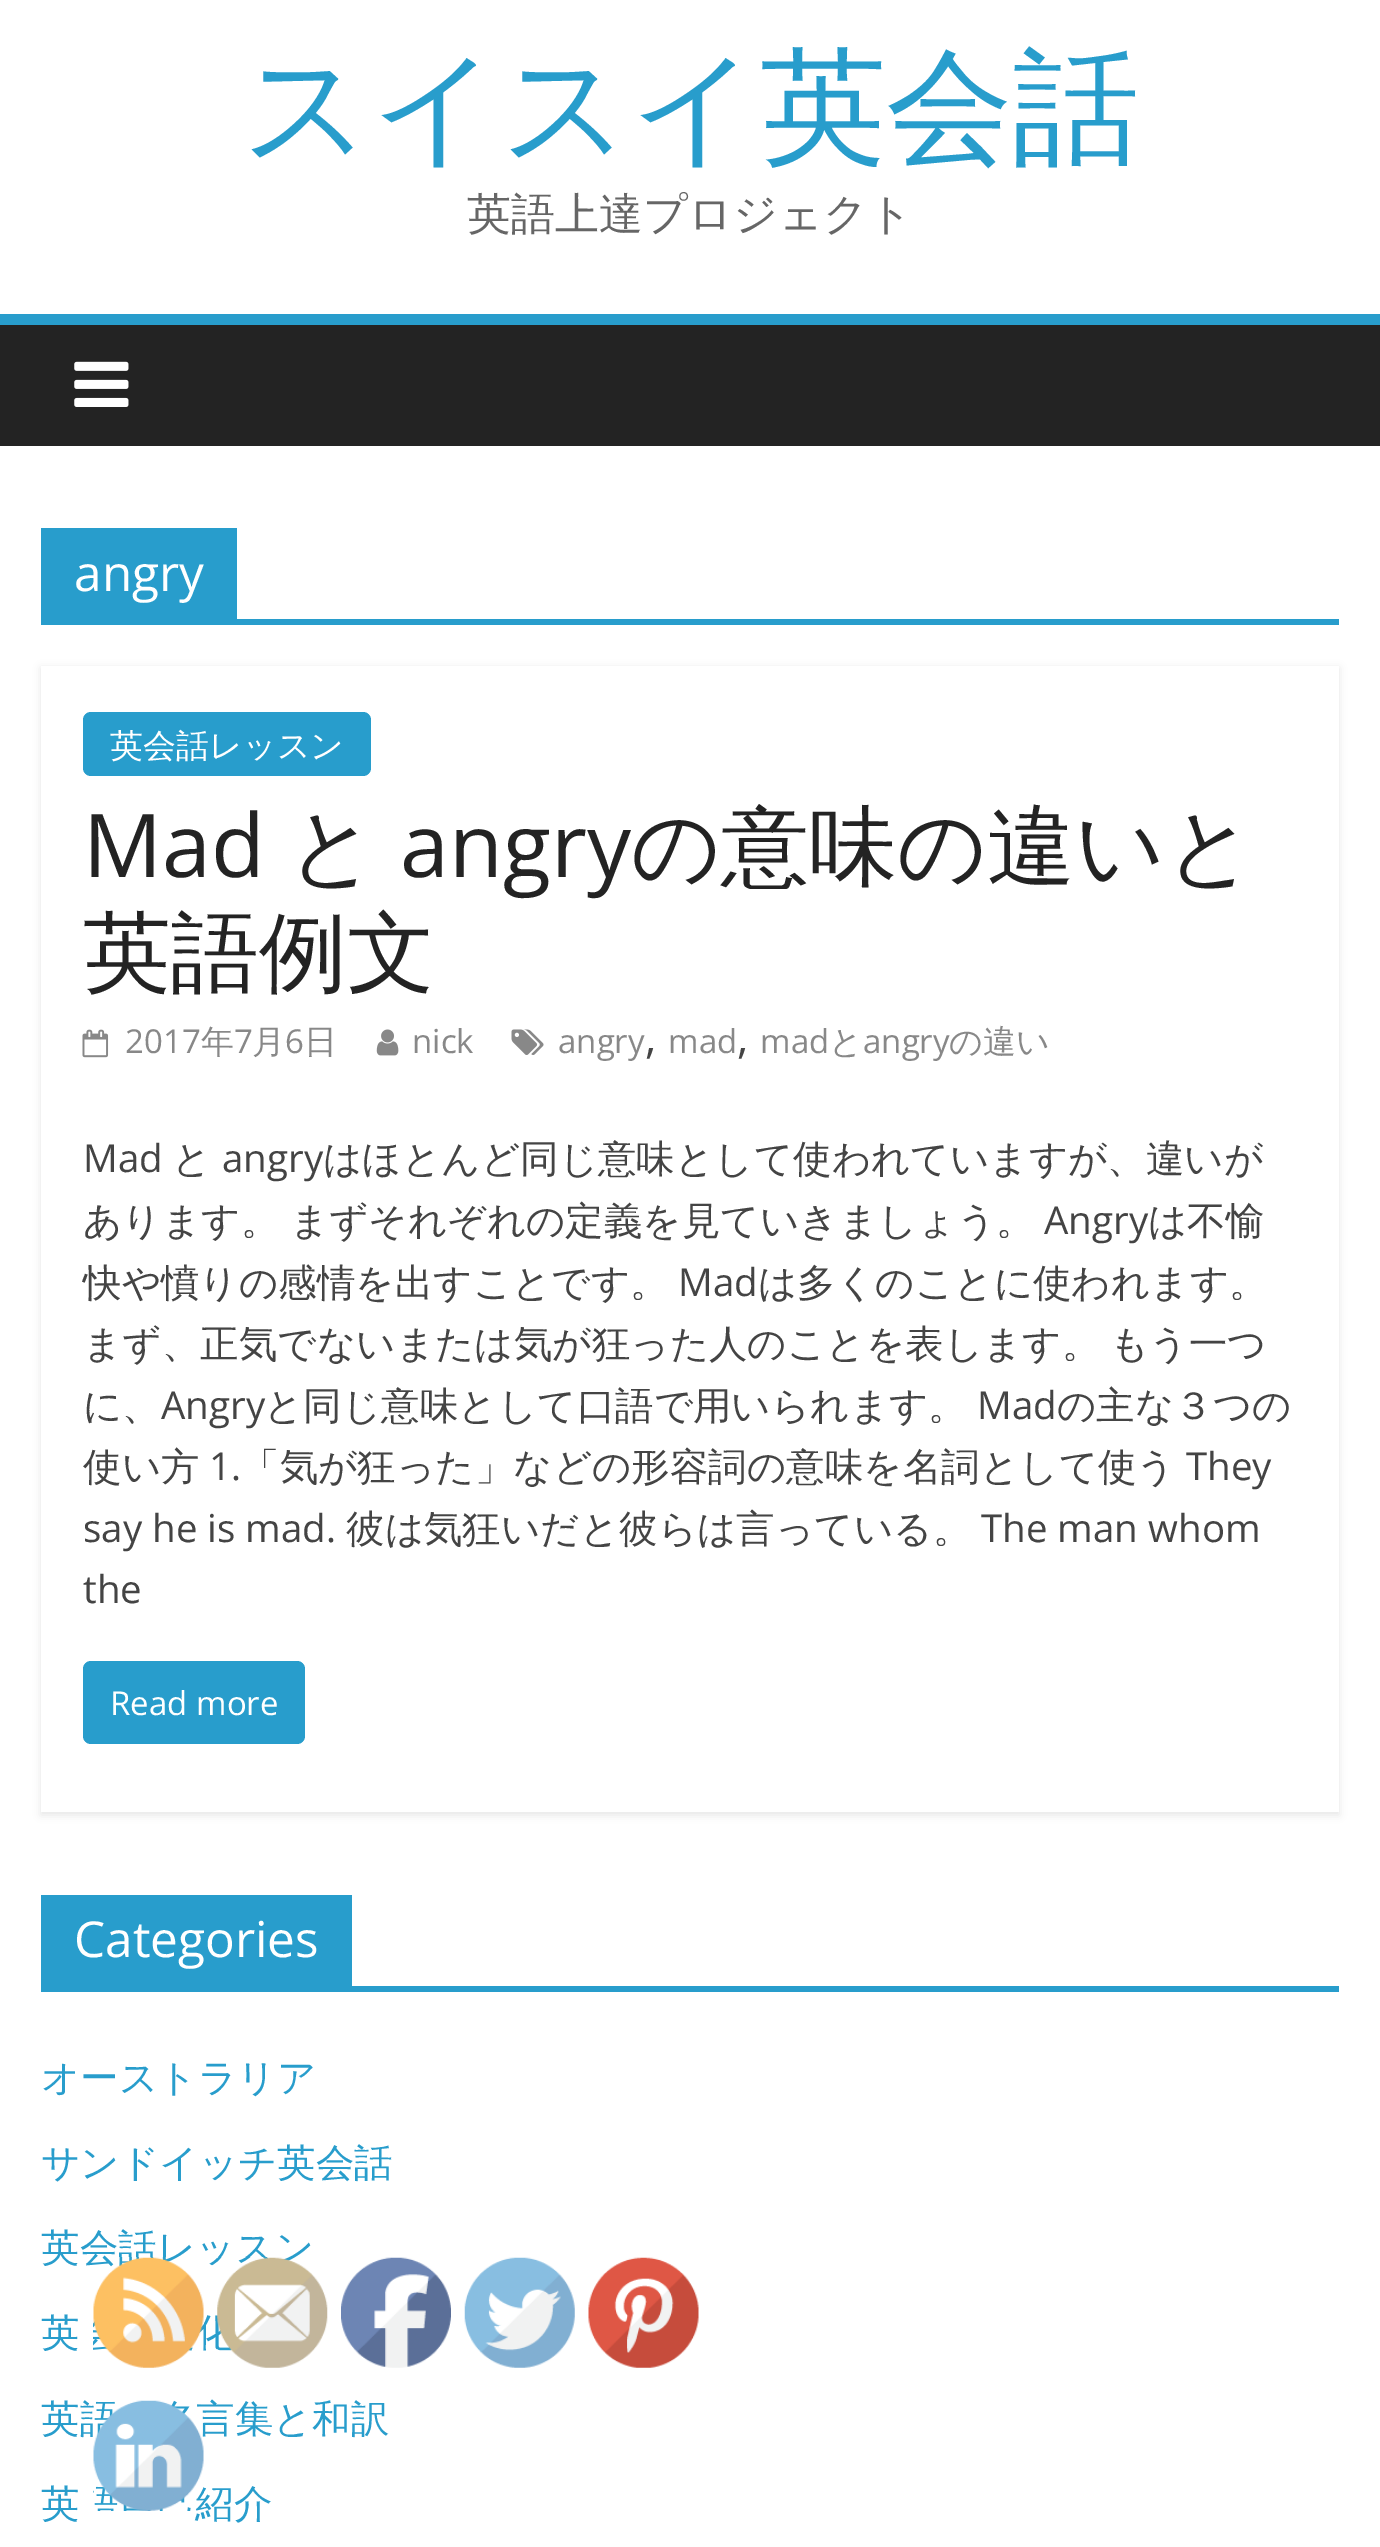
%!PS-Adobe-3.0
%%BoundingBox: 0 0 1380 2547
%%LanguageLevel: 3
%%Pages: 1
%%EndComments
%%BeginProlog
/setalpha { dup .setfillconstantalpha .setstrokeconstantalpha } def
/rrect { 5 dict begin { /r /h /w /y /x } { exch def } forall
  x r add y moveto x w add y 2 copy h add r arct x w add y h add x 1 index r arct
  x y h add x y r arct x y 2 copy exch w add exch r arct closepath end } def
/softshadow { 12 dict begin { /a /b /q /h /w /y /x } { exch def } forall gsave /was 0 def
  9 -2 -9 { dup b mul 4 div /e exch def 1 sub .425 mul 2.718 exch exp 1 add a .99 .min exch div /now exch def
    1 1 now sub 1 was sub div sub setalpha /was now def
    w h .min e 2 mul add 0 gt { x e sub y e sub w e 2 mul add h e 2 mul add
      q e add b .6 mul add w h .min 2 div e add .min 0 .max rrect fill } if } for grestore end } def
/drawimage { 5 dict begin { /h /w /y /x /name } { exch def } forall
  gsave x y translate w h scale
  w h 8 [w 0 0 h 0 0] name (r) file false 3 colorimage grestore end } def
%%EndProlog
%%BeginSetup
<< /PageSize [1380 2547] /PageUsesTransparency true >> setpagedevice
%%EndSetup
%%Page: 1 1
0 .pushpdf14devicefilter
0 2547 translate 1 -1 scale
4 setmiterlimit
1 setgray
0 0 1380 2547 rectfill
0.137 setgray
0 325 1380 121 rectfill
0.157 0.616 0.8 setrgbcolor
0 314 1380 11 rectfill
(images/1.raw) 74 361 55 46 drawimage
41 619 1298 6 rectfill
41 528 196 91 rectfill
gsave
newpath 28 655 moveto 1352 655 lineto 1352 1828 lineto 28 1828 lineto closepath 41 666 moveto 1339 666 lineto 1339 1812 lineto 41 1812 lineto closepath eoclip newpath
0 setgray
41 668 1298 1147 0 4 0.1 softshadow
grestore
83 712 288 64 8 rrect fill
(images/2.raw) 82 1029 27 29 drawimage
(images/3.raw) 376 1029 23 27 drawimage
(images/4.raw) 511 1029 33 26 drawimage
83 1661 222 83 8 rrect fill
41 1986 1298 6 rectfill
41 1895 311 91 rectfill
(images/7.raw) 341 2257 110 111 drawimage
(images/8.raw) 464 2257 111 111 drawimage
(images/9.raw) 588 2257 111 111 drawimage
/WenQuanYiZenHei-Medium [126.5 0 0 -126.5 0 0] selectfont
242 151 moveto (スイスイ英会話) show
/WenQuanYiZenHei-Medium [44 0 0 -44 0 0] selectfont
0.4 setgray
467 229 moveto (英語上達プロジェクト) show
/OpenSans-Regular [49.5 0 0 -49.5 0 0] selectfont
1 setgray
74 591 moveto (angry) show
/WenQuanYiZenHei-Medium [33 0 0 -33 0 0] selectfont
110 757 moveto (英会話レッスン) show
/OpenSans-Regular [88 0 0 -88 0 0] selectfont
0.137 setgray
83 877 moveto (Mad) show
/WenQuanYiZenHei-Medium [88 0 0 -88 0 0] selectfont
287 877 moveto (と) show
/OpenSans-Regular [88 0 0 -88 0 0] selectfont
400 877 moveto (angry) show
/WenQuanYiZenHei-Medium [88 0 0 -88 0 0] selectfont
631 877 moveto (の意味の違いと) show
83 983 moveto (英語例文) show
/OpenSans-Regular [33 0 0 -33 0 0] selectfont
0.533 setgray
125 1053 moveto (2017) show
/WenQuanYiZenHei-Medium [33 0 0 -33 0 0] selectfont
201 1053 moveto (年) show
/OpenSans-Regular [33 0 0 -33 0 0] selectfont
234 1053 moveto (7) show
/WenQuanYiZenHei-Medium [33 0 0 -33 0 0] selectfont
252 1053 moveto (月) show
/OpenSans-Regular [33 0 0 -33 0 0] selectfont
285 1053 moveto (6) show
/WenQuanYiZenHei-Medium [33 0 0 -33 0 0] selectfont
304 1053 moveto (日) show
/OpenSans-Regular [33 0 0 -33 0 0] selectfont
412 1053 moveto (nick) show
558 1053 moveto (angry) show
/OpenSans-Regular [44 0 0 -44 0 0] selectfont
0.267 setgray
645 1053 moveto (,) show
/OpenSans-Regular [33 0 0 -33 0 0] selectfont
0.533 setgray
668 1053 moveto (mad) show
/OpenSans-Regular [44 0 0 -44 0 0] selectfont
0.267 setgray
737 1053 moveto (,) show
/OpenSans-Regular [33 0 0 -33 0 0] selectfont
0.533 setgray
760 1053 moveto (mad) show
/WenQuanYiZenHei-Medium [33 0 0 -33 0 0] selectfont
829 1053 moveto (と) show
/OpenSans-Regular [33 0 0 -33 0 0] selectfont
863 1053 moveto (angry) show
/WenQuanYiZenHei-Medium [33 0 0 -33 0 0] selectfont
949 1053 moveto (の違い) show
/OpenSans-Regular [38.5 0 0 -38.5 0 0] selectfont
0.267 setgray
83 1172 moveto (Mad) show
/WenQuanYiZenHei-Medium [38.5 0 0 -38.5 0 0] selectfont
172 1172 moveto (と) show
/OpenSans-Regular [38.5 0 0 -38.5 0 0] selectfont
222 1172 moveto (angry) show
/WenQuanYiZenHei-Medium [38.5 0 0 -38.5 0 0] selectfont
323 1172 moveto (はほとんど同じ意味として使われていますが、違いが) show
83 1234 moveto -1 0 32 (あります。 まずそれぞれの定義を見ていきましょう。) widthshow
/OpenSans-Regular [38.5 0 0 -38.5 0 0] selectfont
1044 1234 moveto (Angry) show
/WenQuanYiZenHei-Medium [38.5 0 0 -38.5 0 0] selectfont
1148 1234 moveto (は不愉) show
83 1296 moveto (快や憤りの感情を出すことです。) show
/OpenSans-Regular [38.5 0 0 -38.5 0 0] selectfont
678 1296 moveto (Mad) show
/WenQuanYiZenHei-Medium [38.5 0 0 -38.5 0 0] selectfont
758 1296 moveto (は多くのことに使われます。) show
83 1357 moveto -2 0 32 (まず、正気でないまたは気が狂った人のことを表します。 もう一つ) widthshow
83 1419 moveto (に、) show
/OpenSans-Regular [38.5 0 0 -38.5 0 0] selectfont
161 1419 moveto (Angry) show
/WenQuanYiZenHei-Medium [38.5 0 0 -38.5 0 0] selectfont
264 1419 moveto (と同じ意味として口語で用いられます。) show
/OpenSans-Regular [38.5 0 0 -38.5 0 0] selectfont
977 1419 moveto (Mad) show
/WenQuanYiZenHei-Medium [38.5 0 0 -38.5 0 0] selectfont
1057 1419 moveto (の主な３つの) show
83 1480 moveto (使い方) show
/OpenSans-Regular [38.5 0 0 -38.5 0 0] selectfont
209 1480 moveto (1.) show
/WenQuanYiZenHei-Medium [38.5 0 0 -38.5 0 0] selectfont
241 1480 moveto (「気が狂った」などの形容詞の意味を名詞として使う) show
/OpenSans-Regular [38.5 0 0 -38.5 0 0] selectfont
1186 1480 moveto (They) show
83 1542 moveto (say he is mad.) show
/WenQuanYiZenHei-Medium [38.5 0 0 -38.5 0 0] selectfont
346 1542 moveto (彼は気狂いだと彼らは言っている。) show
/OpenSans-Regular [38.5 0 0 -38.5 0 0] selectfont
981 1542 moveto (The man whom) show
83 1603 moveto (the) show
/OpenSans-Regular [33 0 0 -33 0 0] selectfont
1 setgray
110 1715 moveto (Read more) show
/OpenSans-Regular [49.5 0 0 -49.5 0 0] selectfont
74 1957 moveto (Categories) show
/WenQuanYiZenHei-Medium [38.5 0 0 -38.5 0 0] selectfont
0.157 0.616 0.8 setrgbcolor
41 2091 moveto (オーストラリア) show
41 2176 moveto (サンドイッチ英会話) show
41 2261 moveto (英会話レッスン) show
41 2346 moveto (英) show
195 2346 moveto (化) show
41 2432 moveto (英語) show
196 2432 moveto (言集と和訳) show
41 2517 moveto (英) show
195 2517 moveto (紹介) show
(images/5.raw) 93 2257 111 111 drawimage
(images/6.raw) 217 2257 111 111 drawimage
(images/10.raw) 93 2400 111 111 drawimage
.poppdf14devicefilter showpage
%%EOF
